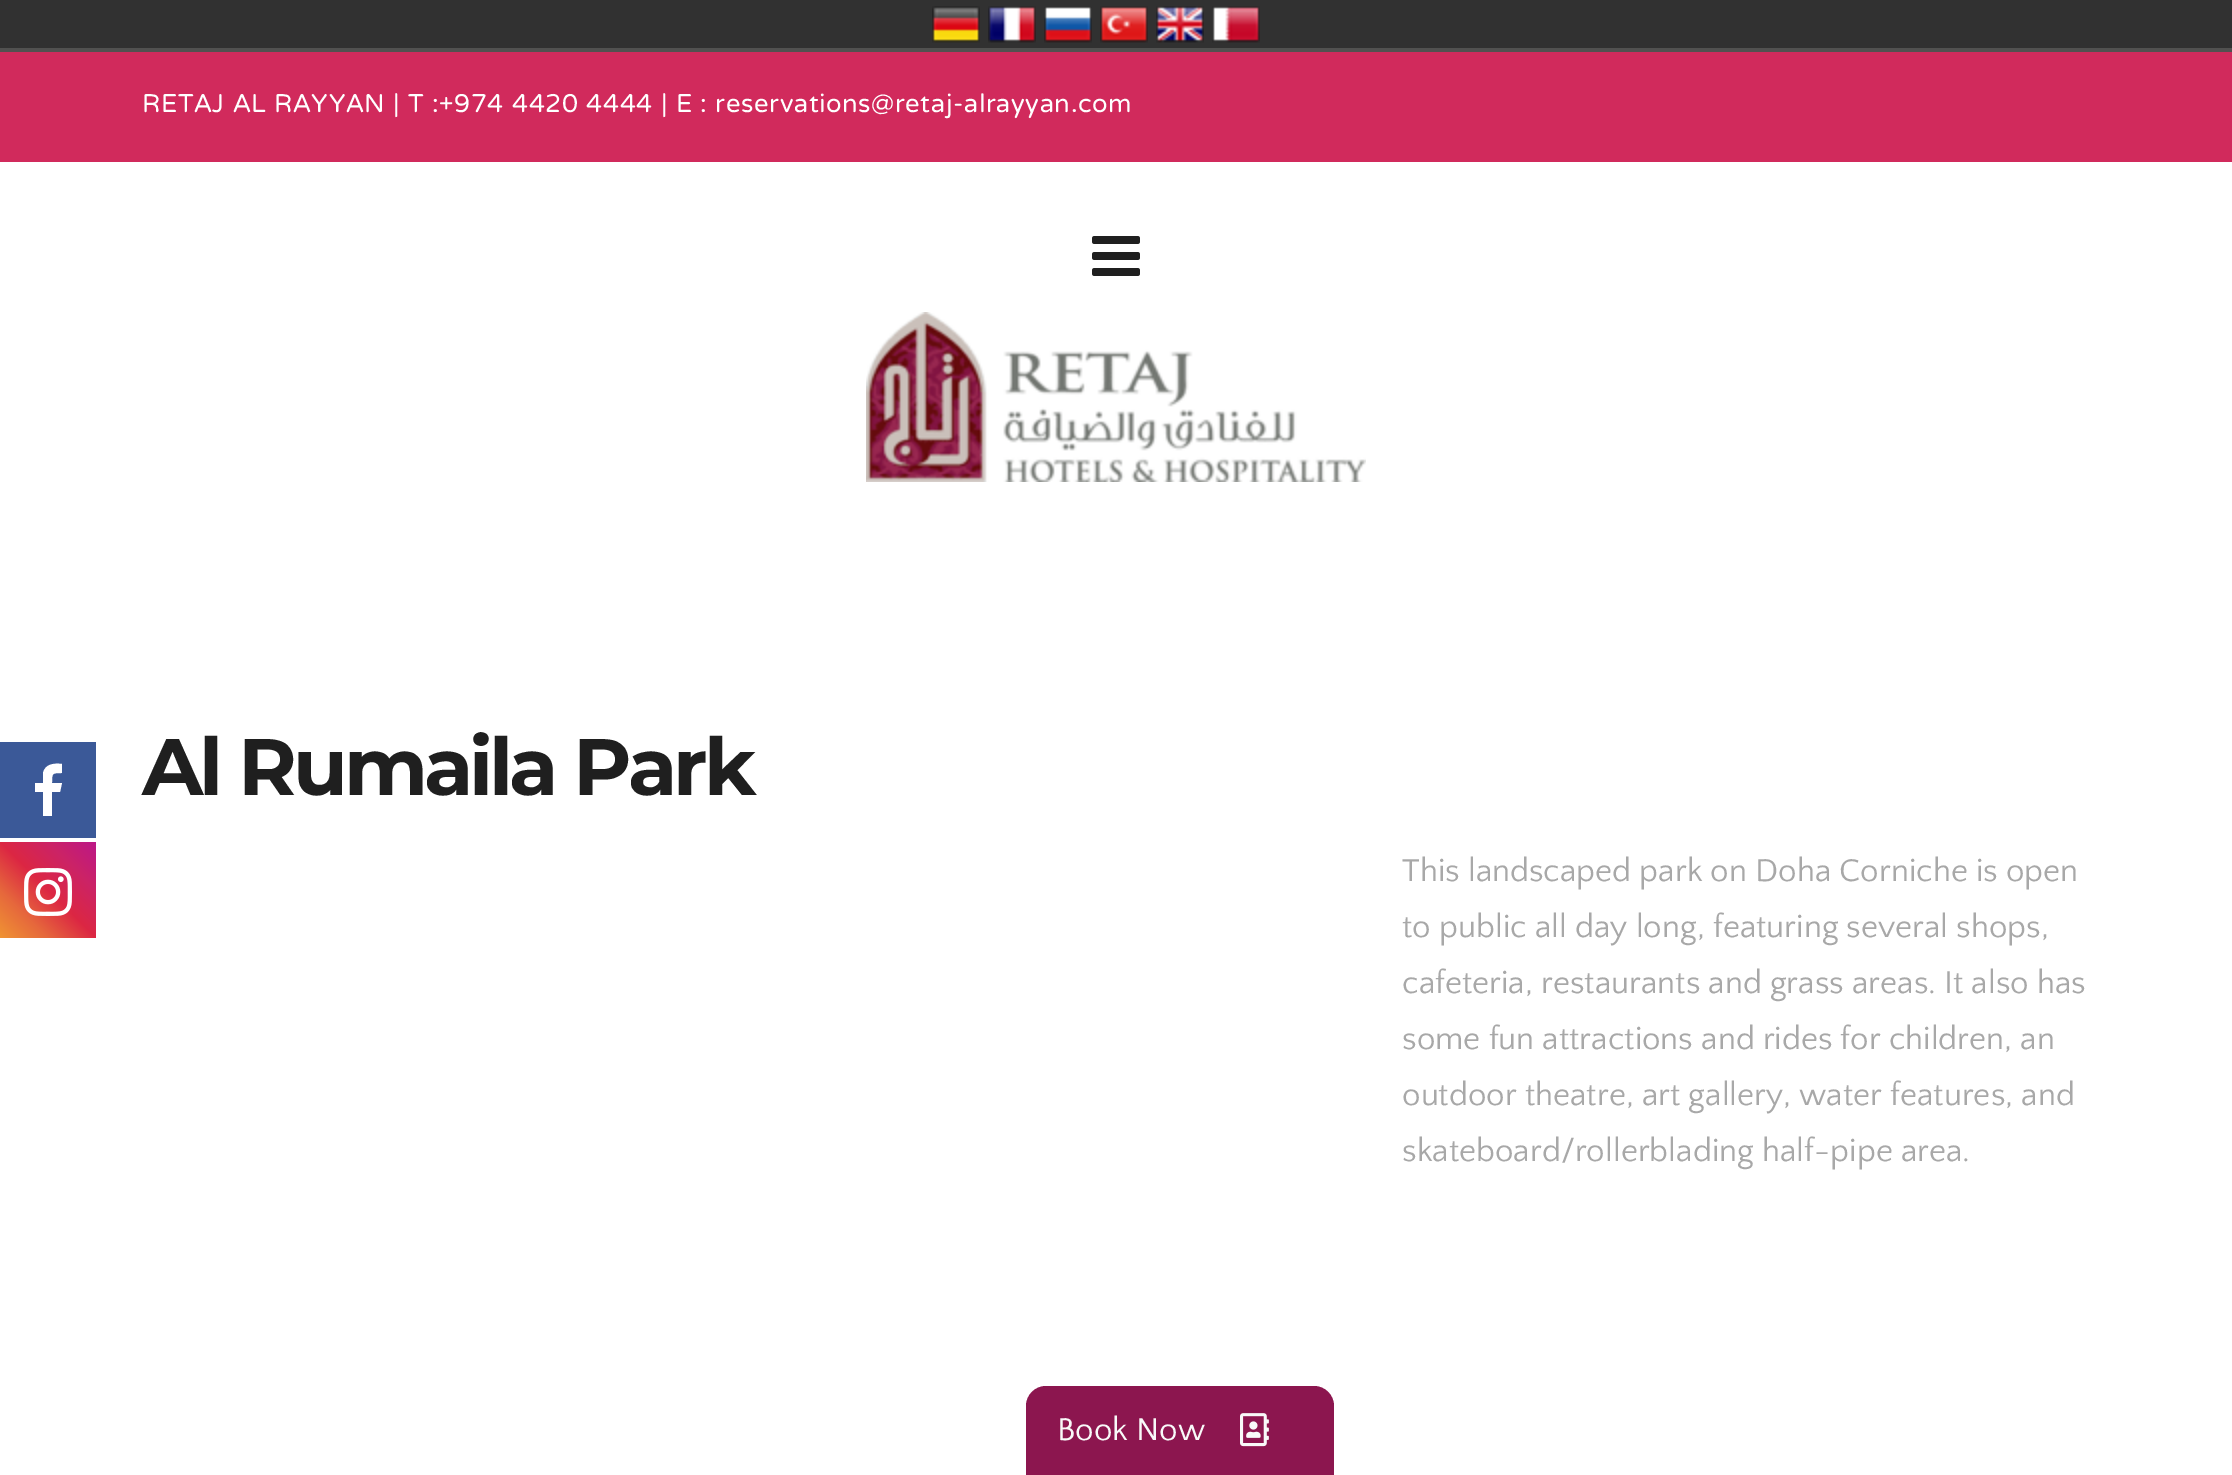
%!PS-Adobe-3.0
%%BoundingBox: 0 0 2232 1475
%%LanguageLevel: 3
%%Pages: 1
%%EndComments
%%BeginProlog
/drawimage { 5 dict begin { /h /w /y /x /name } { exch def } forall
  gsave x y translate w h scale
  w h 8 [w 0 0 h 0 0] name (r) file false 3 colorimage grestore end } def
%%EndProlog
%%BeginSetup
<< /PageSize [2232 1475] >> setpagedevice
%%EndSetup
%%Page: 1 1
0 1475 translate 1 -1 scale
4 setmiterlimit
1 setgray
0 0 2232 1475 rectfill
0.192 setgray
0 0 2232 48 rectfill
0.318 0.318 0.314 setrgbcolor
0 48 2232 4 rectfill
(images/1.raw) 932 6 48 37 drawimage
(images/2.raw) 988 6 48 37 drawimage
(images/3.raw) 1044 7 48 36 drawimage
(images/4.raw) 1100 6 48 37 drawimage
(images/5.raw) 1156 6 48 37 drawimage
(images/6.raw) 1212 6 48 37 drawimage
0.231 0.349 0.596 setrgbcolor
0 742 96 96 rectfill
1 setgray
newpath 62 764 moveto 62 773 lineto 52 773 52 773 52 783 curveto 62 783 lineto 60 792 lineto 52 792 lineto 52 816 lineto 43 816 lineto 43 792 lineto 35 792 lineto 35 783 lineto 43 783 lineto 43 773 lineto 45 764 54 763 62 764 curveto closepath fill
gsave newpath 0 842 moveto 96 842 lineto 96 938 lineto 0 938 lineto closepath clip newpath
<< /ShadingType 2 /ColorSpace /DeviceRGB /Coords [0 938 96 842] /Extend [true true] /Function << /FunctionType 3 /Domain [0 1] /Functions [<< /FunctionType 2 /Domain [0 1] /C0 [0.941 0.58 0.2] /C1 [0.902 0.408 0.235] /N 1 >> << /FunctionType 2 /Domain [0 1] /C0 [0.902 0.408 0.235] /C1 [0.863 0.153 0.263] /N 1 >> << /FunctionType 2 /Domain [0 1] /C0 [0.863 0.153 0.263] /C1 [0.8 0.137 0.4] /N 1 >> << /FunctionType 2 /Domain [0 1] /C0 [0.8 0.137 0.4] /C1 [0.737 0.094 0.533] /N 1 >>] /Bounds [0.25 0.5 0.75] /Encode [0 1 0 1 0 1 0 1] >> >> shfill grestore
(images/7.raw) 24 868 48 48 drawimage
0.82 0.165 0.361 setrgbcolor
0 52 2232 110 rectfill
(images/8.raw) 1092 236 48 40 drawimage
(images/9.raw) 866 312 500 170 drawimage
0.549 0.086 0.31 setrgbcolor
newpath 1046 1386 moveto 1314 1386 lineto 1325 1386 1334 1395 1334 1406 curveto 1334 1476 lineto 1026 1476 lineto 1026 1406 lineto 1026 1395 1035 1386 1046 1386 curveto closepath fill
(images/10.raw) 1240 1413 29 34 drawimage
/NTR-Regular [32 0 0 -32 0 0] selectfont
1 setgray
142 112 moveto 0.6 0 (RETAJ AL RAYYAN | T :+974 4420 4444 | E : reservations@retaj-alrayyan.com) ashow
/Montserrat-Bold [80 0 0 -80 0 0] selectfont
0.122 setgray
142 795 moveto -4 0 (Al Rumaila Park) ashow
/QuattrocentoSans-Regular [33 0 0 -33 0 0] selectfont
0.659 setgray
1402 881 moveto (This landscaped park on Doha Corniche is open) show
1402 937 moveto (to public all day long, featuring several shops,) show
1402 993 moveto (cafeteria, restaurants and grass areas. It also has) show
1402 1049 moveto (some fun attractions and rides for children, an) show
1402 1105 moveto (outdoor theatre, art gallery, water features, and) show
1402 1161 moveto (skateboard/rollerblading half-pipe area.) show
0.976 setgray
1057 1440 moveto (Book Now) show
showpage
%%EOF
